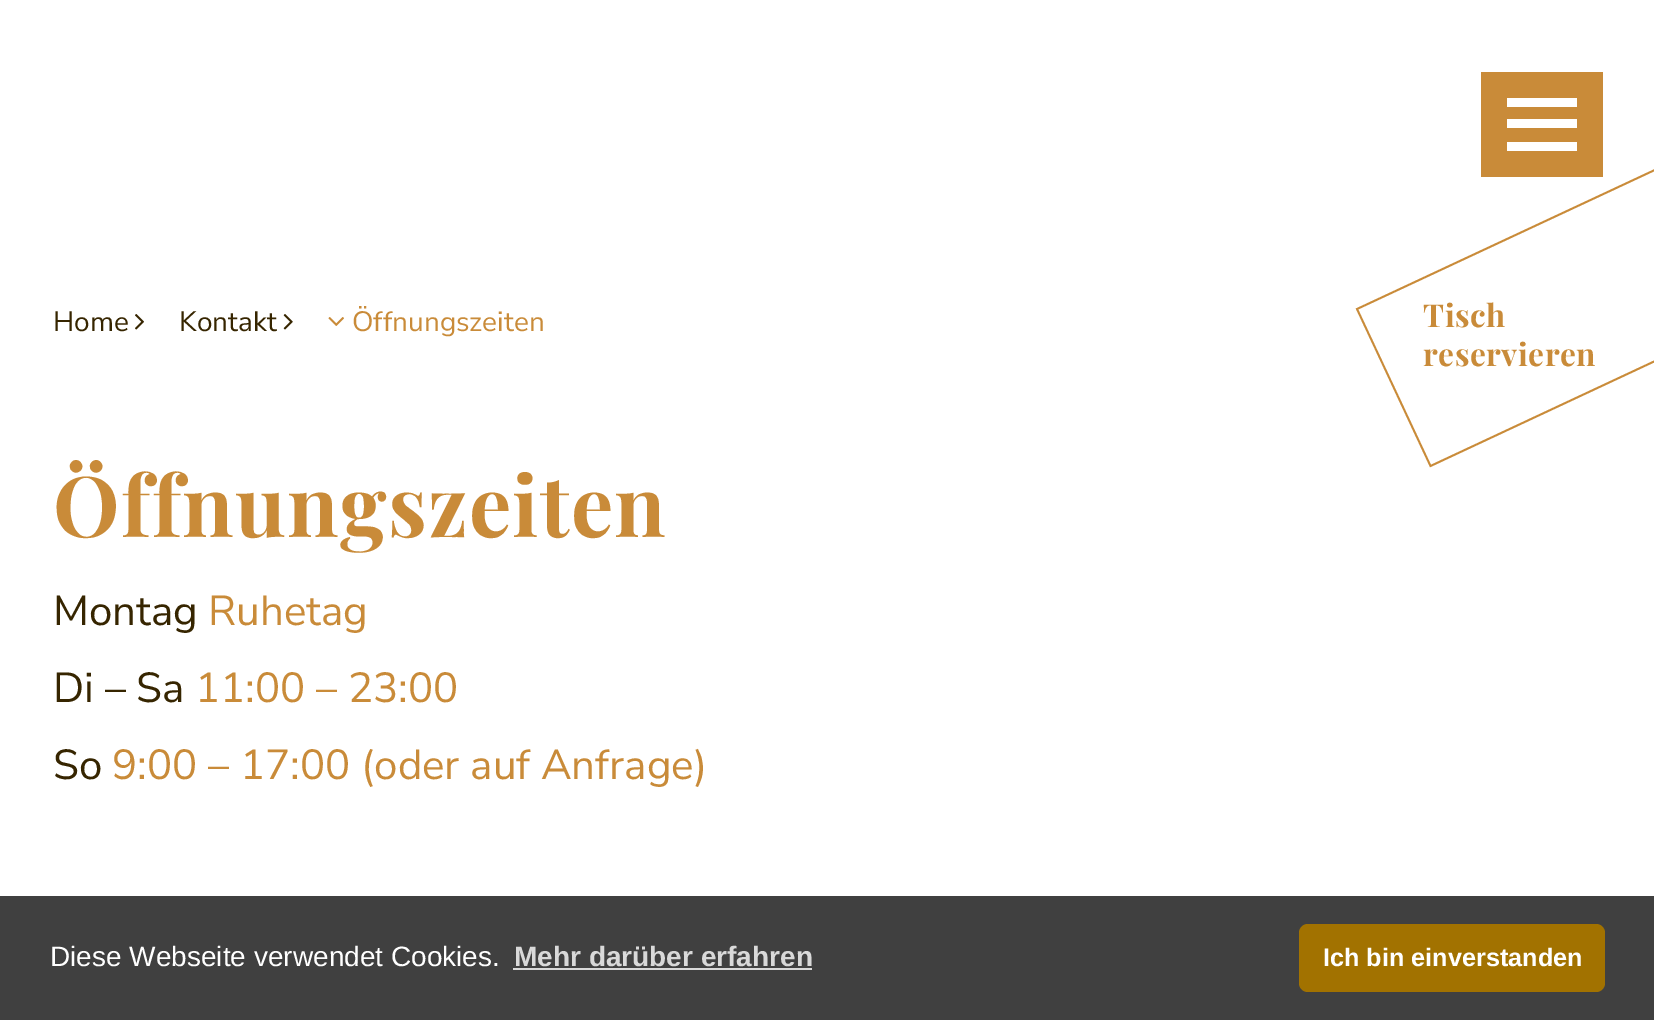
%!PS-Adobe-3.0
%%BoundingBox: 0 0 1654 1020
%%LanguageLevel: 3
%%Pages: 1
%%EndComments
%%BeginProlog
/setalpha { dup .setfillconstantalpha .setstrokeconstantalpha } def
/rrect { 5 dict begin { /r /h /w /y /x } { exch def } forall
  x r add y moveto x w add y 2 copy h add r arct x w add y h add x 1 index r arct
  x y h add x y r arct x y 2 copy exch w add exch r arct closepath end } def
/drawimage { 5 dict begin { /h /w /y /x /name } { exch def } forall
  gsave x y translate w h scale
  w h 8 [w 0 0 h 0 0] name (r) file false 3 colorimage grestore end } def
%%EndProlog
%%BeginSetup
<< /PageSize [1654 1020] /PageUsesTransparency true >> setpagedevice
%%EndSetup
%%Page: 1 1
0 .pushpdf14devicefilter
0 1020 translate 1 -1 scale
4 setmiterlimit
1 setgray
0 0 1654 1020 rectfill
0.788 0.545 0.224 setrgbcolor
1481 72 122 105 rectfill
1 setgray
1507 98 70 9 rectfill
1507 119 70 9 rectfill
1507 142 70 9 rectfill
(images/1.raw) 135 314 9 16 drawimage
(images/2.raw) 283 314 10 16 drawimage
(images/3.raw) 328 317 16 9 drawimage
0.788 0.545 0.224 setrgbcolor
1.8 setlinewidth
newpath 1357 309 moveto 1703 147.5 lineto 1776 304.5 lineto 1430.5 466 lineto closepath stroke
0.75 setalpha
0 setgray
0 896 1654 124 rectfill
1 setalpha
0.851 setgray
513 968 299 2 rectfill
0.635 0.447 0 setrgbcolor
1299 924 306 68 9 rrect fill
/NunitoSans-Regular [28 0 0 -28 0 0] selectfont
0.212 0.145 0 setrgbcolor
53 331 moveto (Home) show
179 331 moveto (Kontakt) show
0.788 0.545 0.224 setrgbcolor
352 331 moveto (Öffnungszeiten) show
/PlayfairDisplay-Bold [31.5 0 0 -31.5 0 0] selectfont
1423 327 moveto 0.5 0 (Tisch) ashow
1423 366 moveto 0.5 0 (reservieren) ashow
/PlayfairDisplay-Bold [84 0 0 -84 0 0] selectfont
53 537 moveto 1.2 0 (Öffnungszeiten) ashow
/NunitoSans-Regular [42 0 0 -42 0 0] selectfont
0.212 0.145 0 setrgbcolor
53 625 moveto (Montag) show
0.788 0.545 0.224 setrgbcolor
208 625 moveto (Ruhetag) show
0.212 0.145 0 setrgbcolor
53 702 moveto (Di – Sa) show
0.788 0.545 0.224 setrgbcolor
195 702 moveto (11:00 – 23:00) show
0.212 0.145 0 setrgbcolor
53 779 moveto (So) show
0.788 0.545 0.224 setrgbcolor
112 779 moveto (9:00 – 17:00 \(oder auf Anfrage\)) show
/LiberationSans-Regular [28 0 0 -28 0 0] selectfont
1 setgray
50 966 moveto (Diese Webseite verwendet Cookies.) show
/LiberationSans-Bold [28 0 0 -28 0 0] selectfont
0.851 setgray
514 966 moveto (Mehr darüber erfahren) show
/LiberationSans-Bold [25.25 0 0 -25.25 0 0] selectfont
1 setgray
1323 966 moveto (Ich bin einverstanden) show
.poppdf14devicefilter showpage
%%EOF
